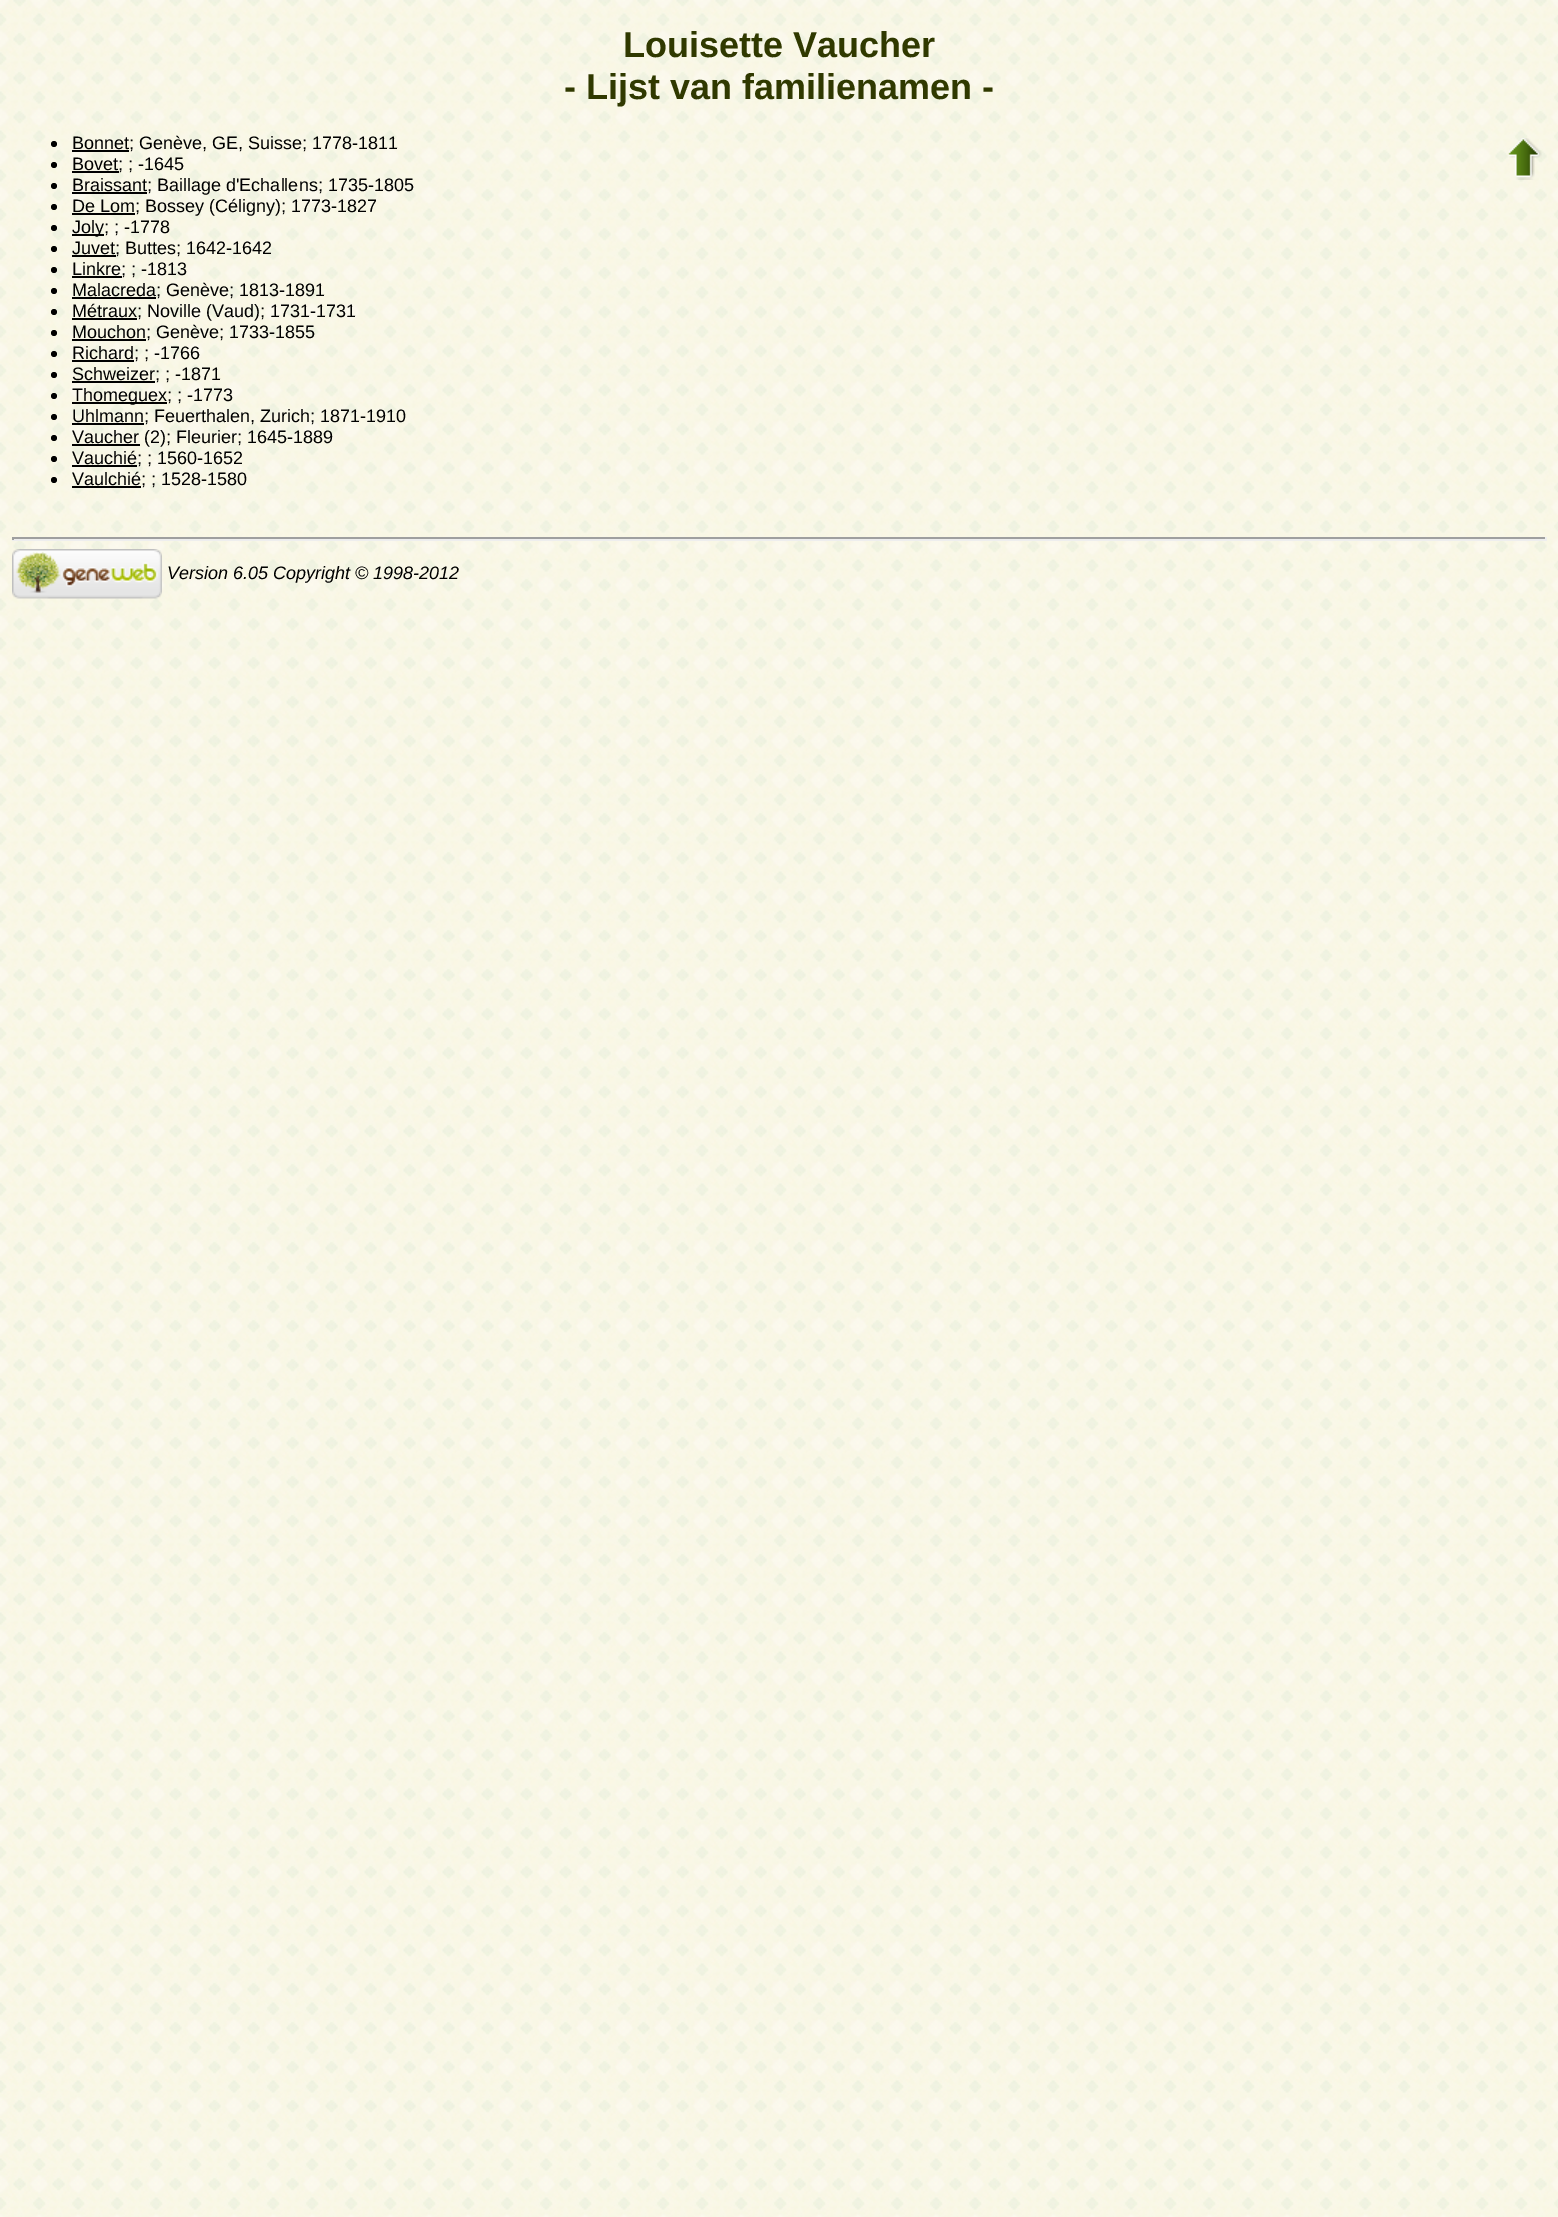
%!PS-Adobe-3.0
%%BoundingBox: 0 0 1558 2217
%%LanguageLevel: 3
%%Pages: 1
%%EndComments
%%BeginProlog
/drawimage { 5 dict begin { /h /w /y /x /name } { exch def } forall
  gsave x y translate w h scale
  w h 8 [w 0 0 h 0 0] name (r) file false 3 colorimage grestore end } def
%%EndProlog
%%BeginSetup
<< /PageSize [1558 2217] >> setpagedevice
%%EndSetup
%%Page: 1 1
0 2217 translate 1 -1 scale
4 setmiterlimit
1 setgray
0 0 1558 2217 rectfill
(images/1.raw) 0 0 1558 2217 drawimage
0 setgray
newpath 54 144 3 0 360 arc closepath fill
72 150 57 2 rectfill
newpath 54 165 3 0 360 arc closepath fill
72 171 47 2 rectfill
newpath 54 186 3 0 360 arc closepath fill
72 192 75 2 rectfill
newpath 54 207 3 0 360 arc closepath fill
72 213 63 2 rectfill
newpath 54 228 3 0 360 arc closepath fill
72 234 32 2 rectfill
newpath 54 249 3 0 360 arc closepath fill
72 255 44 2 rectfill
newpath 54 270 3 0 360 arc closepath fill
72 276 50 2 rectfill
newpath 54 291 3 0 360 arc closepath fill
72 297 84 2 rectfill
newpath 54 312 3 0 360 arc closepath fill
72 318 65 2 rectfill
newpath 54 333 3 0 360 arc closepath fill
72 339 74 2 rectfill
newpath 54 354 3 0 360 arc closepath fill
72 360 62 2 rectfill
newpath 54 375 3 0 360 arc closepath fill
72 381 83 2 rectfill
newpath 54 396 3 0 360 arc closepath fill
72 402 95 2 rectfill
newpath 54 417 3 0 360 arc closepath fill
72 423 72 2 rectfill
newpath 54 438 3 0 360 arc closepath fill
72 444 68 2 rectfill
newpath 54 459 3 0 360 arc closepath fill
72 465 65 2 rectfill
newpath 54 480 3 0 360 arc closepath fill
72 486 69 2 rectfill
(images/2.raw) 1508 138 34 42 drawimage
0.624 setgray
12 537 1535 2 rectfill
0.933 setgray
1545 537 2 3 rectfill
12 539 1535 2 rectfill
0.624 setgray
12 537 2 3 rectfill
(images/3.raw) 12 549 150 50 drawimage
/LiberationSans-Bold [36 0 0 -36 0 0] selectfont
0.188 0.224 0 setrgbcolor
623 57 moveto (Louisette Vaucher) show
564 99 moveto (- Lijst van familienamen -) show
/LiberationSans-Regular [18 0 0 -18 0 0] selectfont
0 setgray
72 149 moveto (Bonnet; Genève, GE, Suisse; 1778-1811) show
72 170 moveto (Bovet; ; -1645) show
72 191 moveto (Braissant; Baillage d'Echallens; 1735-1805) show
72 212 moveto (De Lom; Bossey \(Céligny\); 1773-1827) show
72 233 moveto (Joly; ; -1778) show
72 254 moveto (Juvet; Buttes; 1642-1642) show
72 275 moveto (Linkre; ; -1813) show
72 296 moveto (Malacreda; Genève; 1813-1891) show
72 317 moveto (Métraux; Noville \(Vaud\); 1731-1731) show
72 338 moveto (Mouchon; Genève; 1733-1855) show
72 359 moveto (Richard; ; -1766) show
72 380 moveto (Schweizer; ; -1871) show
72 401 moveto (Thomeguex; ; -1773) show
72 422 moveto (Uhlmann; Feuerthalen, Zurich; 1871-1910) show
72 443 moveto (Vaucher \(2\); Fleurier; 1645-1889) show
72 464 moveto (Vauchié; ; 1560-1652) show
72 485 moveto (Vaulchié; ; 1528-1580) show
/LiberationSans-Italic [18 0 0 -18 0 0] selectfont
167 579 moveto (Version 6.05 Copyright © 1998-2012) show
showpage
%%EOF
